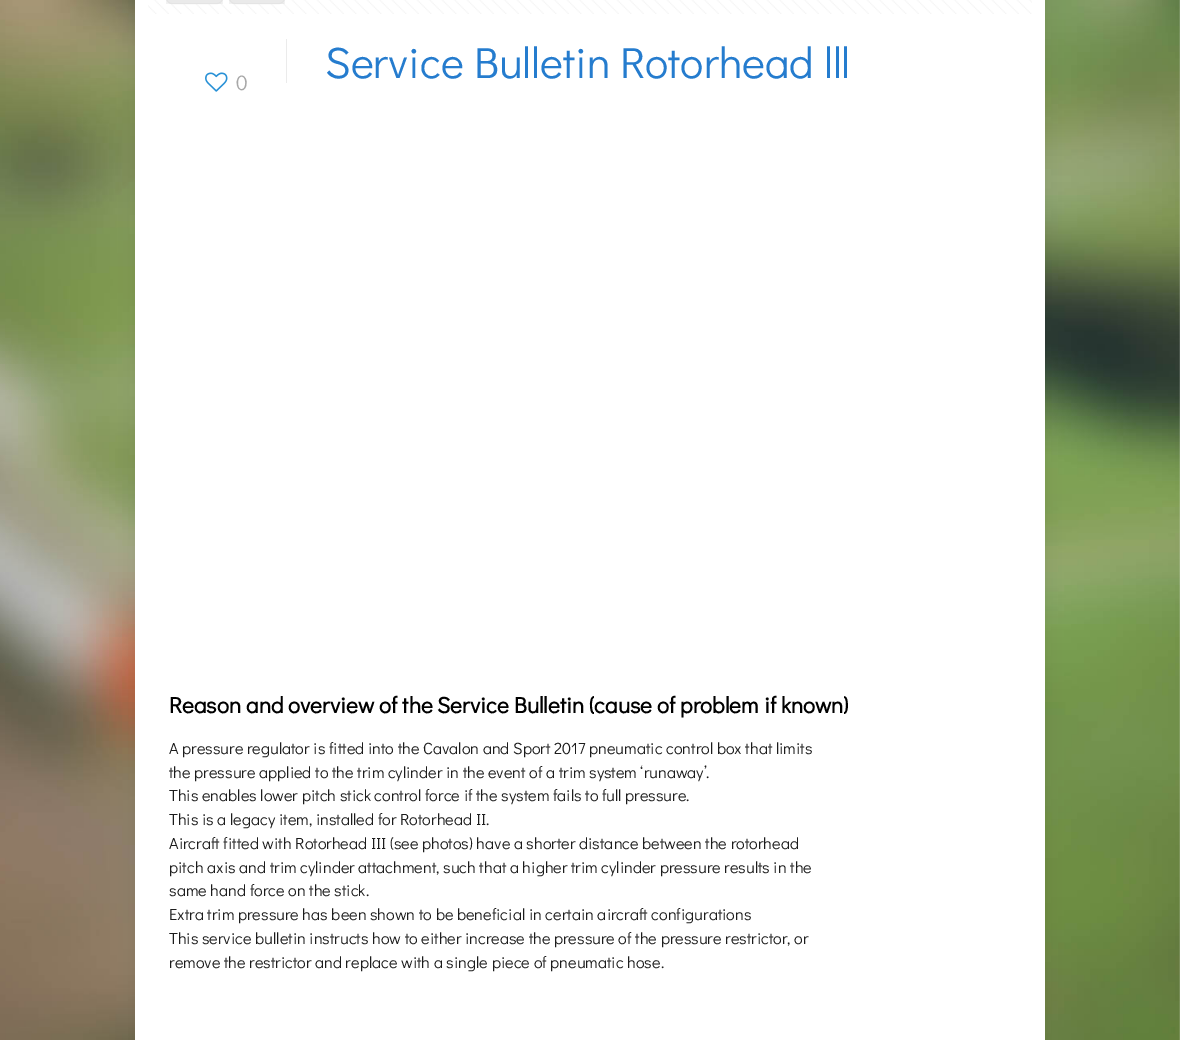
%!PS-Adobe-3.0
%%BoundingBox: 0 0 1180 1040
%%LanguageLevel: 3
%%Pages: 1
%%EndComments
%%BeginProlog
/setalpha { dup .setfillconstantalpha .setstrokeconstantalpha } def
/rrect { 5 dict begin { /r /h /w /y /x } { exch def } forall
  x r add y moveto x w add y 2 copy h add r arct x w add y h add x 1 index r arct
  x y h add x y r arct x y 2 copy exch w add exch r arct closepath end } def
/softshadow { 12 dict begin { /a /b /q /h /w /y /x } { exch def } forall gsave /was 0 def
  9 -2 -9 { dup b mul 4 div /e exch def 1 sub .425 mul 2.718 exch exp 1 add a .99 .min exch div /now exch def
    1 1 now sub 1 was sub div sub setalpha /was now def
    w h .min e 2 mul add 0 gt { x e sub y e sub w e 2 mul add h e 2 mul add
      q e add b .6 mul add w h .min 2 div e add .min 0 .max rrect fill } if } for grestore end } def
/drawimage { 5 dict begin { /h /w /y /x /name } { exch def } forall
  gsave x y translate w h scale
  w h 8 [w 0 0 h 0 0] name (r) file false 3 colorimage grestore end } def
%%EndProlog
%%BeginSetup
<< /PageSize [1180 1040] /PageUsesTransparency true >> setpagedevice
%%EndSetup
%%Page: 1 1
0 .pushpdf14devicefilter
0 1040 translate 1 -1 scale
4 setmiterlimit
1 setgray
0 0 1180 1040 rectfill
(images/1.raw) 0 0 1180 1040 drawimage
0 setgray
135 -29 910 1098 0 9.5 0.06 softshadow
1 setgray
135 0 910 1040 rectfill
(images/2.raw) 148 0 884 14 drawimage
0.969 setgray
166.5 -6.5 56 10 5.5 rrect gsave fill grestore
0.941 setgray
stroke
0.05 setalpha
0 setgray
166 0 57 4 rectfill
1 setalpha
0.969 setgray
229.5 -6.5 55 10 5.5 rrect gsave fill grestore
0.941 setgray
stroke
0.05 setalpha
0 setgray
229 0 56 4 rectfill
1 setalpha
0.922 setgray
286 39 1 44 rectfill
(images/3.raw) 205 72 23 20 drawimage
/DidactGothic-Regular [43.75 0 0 -43.75 0 0] selectfont
0.145 0.486 0.808 setrgbcolor
325 78 moveto (Service Bulletin Rotorhead lll) show
/DidactGothic-Regular [21 0 0 -21 0 0] selectfont
0.659 setgray
236 90 moveto (0) show
/DidactGothic-Bold [22.5 0 0 -22.5 0 0] selectfont
0 setgray
169 713 moveto (Reason and overview of the Service Bulletin \(cause of problem if known\)) show
/DidactGothic-Regular [16.25 0 0 -16.25 0 0] selectfont
0.11 setgray
169 754 moveto (A pressure regulator is fitted into the Cavalon and Sport 2017 pneumatic control box that limits) show
169 778 moveto (the pressure applied to the trim cylinder in the event of a trim system ‘runaway’.) show
169 801 moveto (This enables lower pitch stick control force if the system fails to full pressure.) show
169 825 moveto (This is a legacy item, installed for Rotorhead II.) show
169 849 moveto (Aircraft fitted with Rotorhead III \(see photos\) have a shorter distance between the rotorhead) show
169 873 moveto (pitch axis and trim cylinder attachment, such that a higher trim cylinder pressure results in the) show
169 896 moveto (same hand force on the stick.) show
169 920 moveto (Extra trim pressure has been shown to be beneficial in certain aircraft configurations) show
169 944 moveto (This service bulletin instructs how to either increase the pressure of the pressure restrictor, or) show
169 968 moveto (remove the restrictor and replace with a single piece of pneumatic hose.) show
.poppdf14devicefilter showpage
%%EOF
